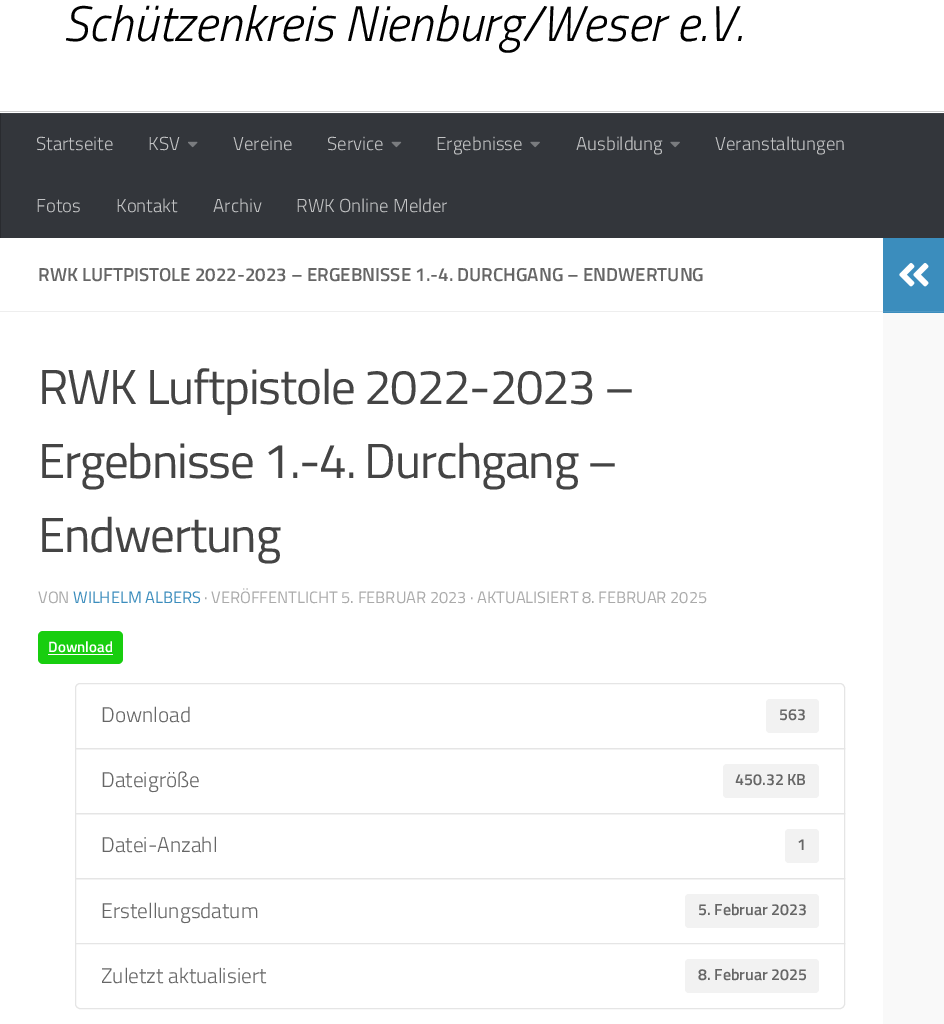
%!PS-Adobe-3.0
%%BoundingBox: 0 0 944 1024
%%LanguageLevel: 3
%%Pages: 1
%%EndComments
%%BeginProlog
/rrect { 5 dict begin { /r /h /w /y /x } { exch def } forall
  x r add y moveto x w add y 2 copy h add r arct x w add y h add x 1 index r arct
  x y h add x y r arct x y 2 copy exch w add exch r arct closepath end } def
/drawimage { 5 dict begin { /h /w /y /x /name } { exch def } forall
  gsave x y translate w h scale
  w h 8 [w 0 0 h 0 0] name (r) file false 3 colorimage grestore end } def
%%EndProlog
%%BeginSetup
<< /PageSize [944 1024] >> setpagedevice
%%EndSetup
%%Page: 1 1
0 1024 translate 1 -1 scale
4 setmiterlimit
1 setgray
0 0 944 1024 rectfill
0.8 setgray
0 111 944 1 rectfill
0.2 0.212 0.231 setrgbcolor
1 114 943 124 rectfill
0.239 0.251 0.271 setrgbcolor
0 113 944 1 rectfill
0.161 0.169 0.184 setrgbcolor
0 113 1 125 rectfill
0.204 0.212 0.224 setrgbcolor
0 113 1 1 rectfill
(images/1.raw) 188 141 10 7 drawimage
(images/2.raw) 391 141 11 7 drawimage
(images/3.raw) 530 141 10 7 drawimage
(images/3.raw) 670 141 10 7 drawimage
0.933 setgray
0 311 883 1 rectfill
0.094 0.808 0.059 setrgbcolor
38 631 85 33 5 rrect fill
1 setgray
48 654 65 1 rectfill
0.898 setgray
newpath 80 683.5 moveto 840 683.5 lineto 842.5 683.5 844.5 685.5 844.5 688 curveto 844.5 748.5 lineto 75.5 748.5 lineto 75.5 688 lineto 75.5 685.5 77.5 683.5 80 683.5 curveto closepath stroke
0.949 setgray
766 699 53 34 4 rrect fill
0.898 setgray
75.5 748.5 769 65 rectstroke
0.949 setgray
723 764 96 34 4 rrect fill
0.898 setgray
75.5 813.5 769 65 rectstroke
0.949 setgray
785 829 34 34 4 rrect fill
0.898 setgray
75.5 878.5 769 65 rectstroke
0.949 setgray
685 894 134 34 4 rrect fill
1 setgray
newpath 75.5 943.5 moveto 844.5 943.5 lineto 844.5 1004 lineto 844.5 1006.5 842.5 1008.5 840 1008.5 curveto 80 1008.5 lineto 77.5 1008.5 75.5 1006.5 75.5 1004 curveto closepath gsave fill grestore
0.898 setgray
stroke
0.949 setgray
685 959 134 34 4 rrect fill
0.231 0.553 0.741 setrgbcolor
883 238 61 75 rectfill
0.31 0.596 0.769 setrgbcolor
883 311 61 1 rectfill
(images/4.raw) 899 263 30 24 drawimage
0.976 setgray
883 313 61 711 rectfill
/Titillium-LightItalic [50 0 0 -50 0 0] selectfont
0 setgray
63 41 moveto (Schützenkreis Nienburg/Weser e.V.) show
/Titillium-Light [18.8 0 0 -18.8 0 0] selectfont
0.761 0.765 0.769 setrgbcolor
36 150 moveto (Startseite) show
148 150 moveto (KSV) show
233 150 moveto (Vereine) show
327 150 moveto (Service) show
436 150 moveto (Ergebnisse) show
576 150 moveto (Ausbildung) show
715 150 moveto (Veranstaltungen) show
36 212 moveto (Fotos) show
116 212 moveto (Kontakt) show
213 212 moveto (Archiv) show
296 212 moveto (RWK Online Melder) show
/Titillium-SemiBold [18.8 0 0 -18.8 0 0] selectfont
0.4 setgray
38 281 moveto (RWK LUFTPISTOLE 2022-2023 – ERGEBNISSE 1.-4. DURCHGANG – ENDWERTUNG) show
/Titillium-Regular [49.25 0 0 -49.25 0 0] selectfont
0.267 setgray
38 404 moveto -1.25 0 (RWK Luftpistole 2022-2023 –) ashow
38 478 moveto -1.25 0 (Ergebnisse 1.-4. Durchgang –) ashow
38 552 moveto -1.25 0 (Endwertung) ashow
/Titillium-Regular [16.45 0 0 -16.45 0 0] selectfont
0.667 setgray
38 603 moveto (VON) show
0.231 0.553 0.741 setrgbcolor
73 603 moveto (WILHELM ALBERS) show
0.667 setgray
204 603 moveto (· VERÖFFENTLICHT 5. FEBRUAR 2023 · AKTUALISIERT 8. FEBRUAR 2025) show
/Titillium-SemiBold [15 0 0 -15 0 0] selectfont
1 setgray
48 652 moveto (Download) show
/Titillium-Light [21.25 0 0 -21.25 0 0] selectfont
0.4 setgray
101 722 moveto (Download) show
/Titillium-SemiBold [16 0 0 -16 0 0] selectfont
779 720 moveto (563) show
/Titillium-Light [21.25 0 0 -21.25 0 0] selectfont
101 787 moveto (Dateigröße) show
/Titillium-SemiBold [16 0 0 -16 0 0] selectfont
735 785 moveto (450.32 KB) show
/Titillium-Light [21.25 0 0 -21.25 0 0] selectfont
101 852 moveto (Datei-Anzahl) show
/Titillium-SemiBold [16 0 0 -16 0 0] selectfont
797 850 moveto (1) show
/Titillium-Light [21.25 0 0 -21.25 0 0] selectfont
101 918 moveto (Erstellungsdatum) show
/Titillium-SemiBold [16 0 0 -16 0 0] selectfont
698 915 moveto (5. Februar 2023) show
/Titillium-Light [21.25 0 0 -21.25 0 0] selectfont
101 983 moveto (Zuletzt aktualisiert) show
/Titillium-SemiBold [16 0 0 -16 0 0] selectfont
698 980 moveto (8. Februar 2025) show
showpage
%%EOF
